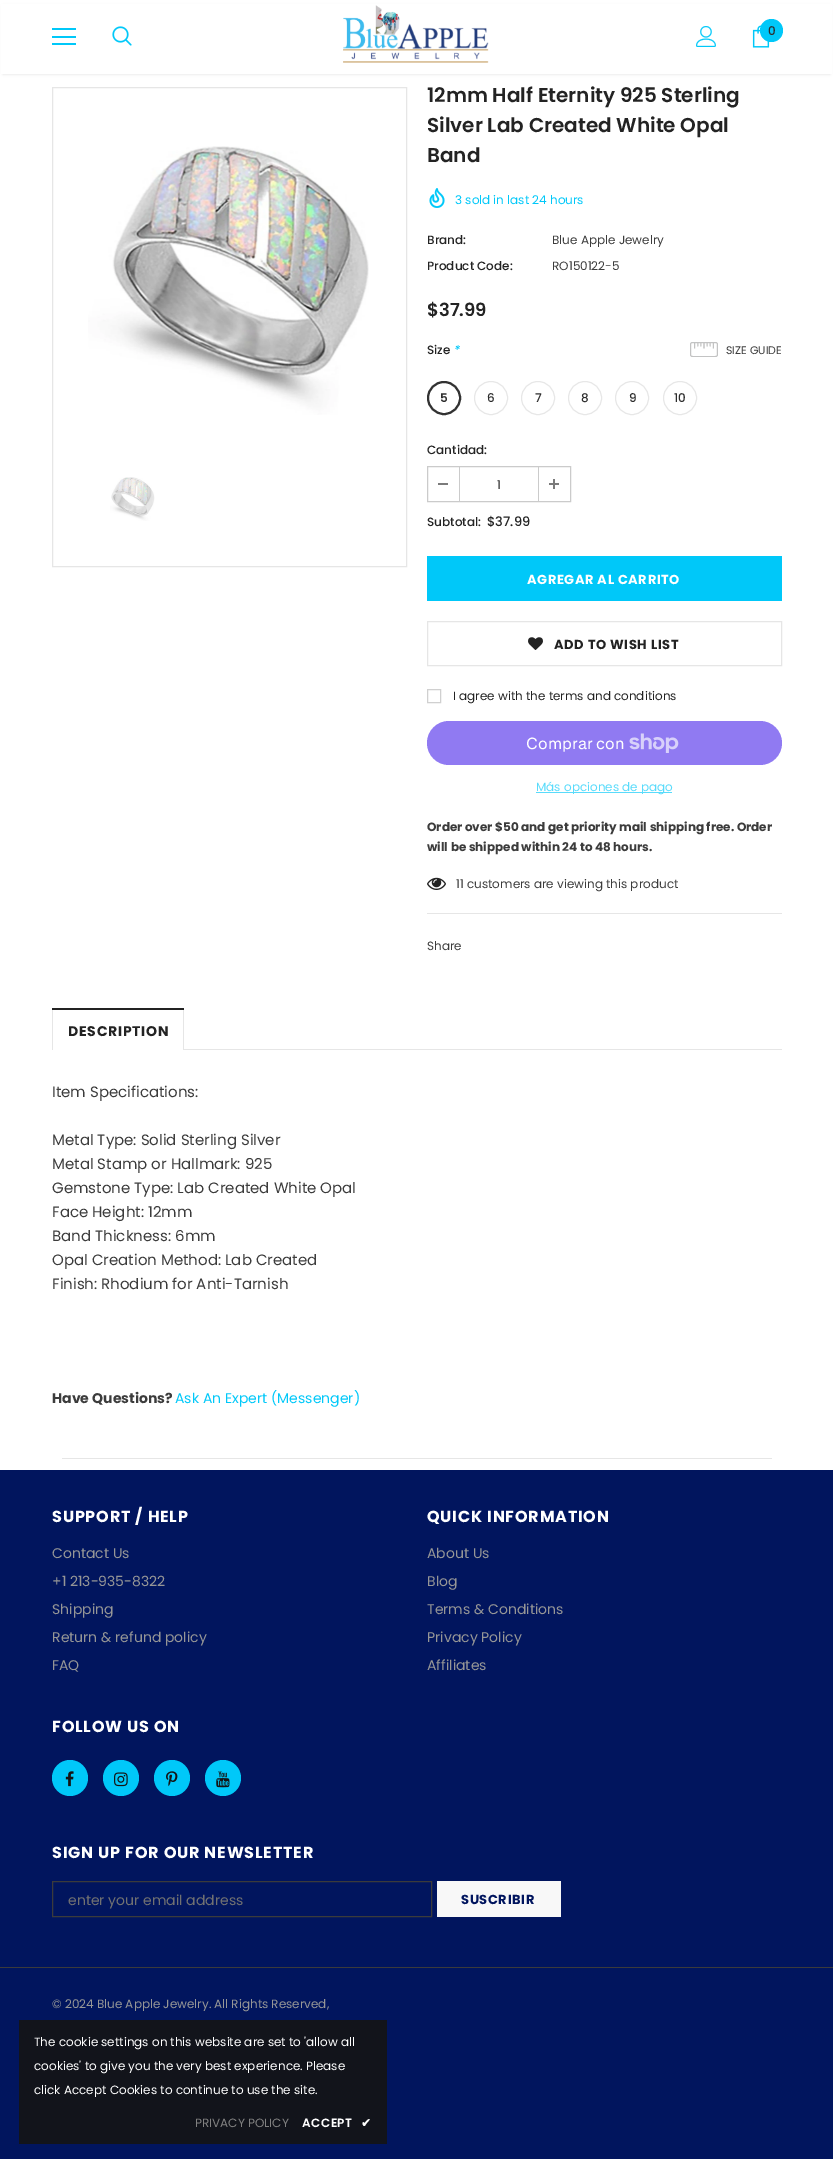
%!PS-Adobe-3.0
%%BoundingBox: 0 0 833 2159
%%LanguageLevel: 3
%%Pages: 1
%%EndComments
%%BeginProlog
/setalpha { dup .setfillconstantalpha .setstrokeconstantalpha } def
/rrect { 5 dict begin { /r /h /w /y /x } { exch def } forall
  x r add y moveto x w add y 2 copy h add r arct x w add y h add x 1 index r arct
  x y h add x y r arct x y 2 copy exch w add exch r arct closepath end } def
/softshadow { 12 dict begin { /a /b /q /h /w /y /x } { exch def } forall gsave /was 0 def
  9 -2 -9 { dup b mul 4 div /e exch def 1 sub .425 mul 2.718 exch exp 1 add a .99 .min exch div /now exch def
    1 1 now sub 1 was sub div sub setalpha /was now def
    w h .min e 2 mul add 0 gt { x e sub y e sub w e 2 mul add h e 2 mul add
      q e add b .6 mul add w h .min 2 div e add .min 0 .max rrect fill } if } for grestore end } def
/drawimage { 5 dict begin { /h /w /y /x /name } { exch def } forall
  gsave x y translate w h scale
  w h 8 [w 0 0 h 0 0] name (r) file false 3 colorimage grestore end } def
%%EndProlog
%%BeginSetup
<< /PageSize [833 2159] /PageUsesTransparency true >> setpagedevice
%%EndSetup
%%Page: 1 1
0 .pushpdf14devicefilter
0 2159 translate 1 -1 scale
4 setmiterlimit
1 setgray
0 0 833 2159 rectfill
0 setgray
3 6 827 68 0 1.5 0.12 softshadow
1 setgray
1 4 831 70 rectfill
0 0.784 0.976 setrgbcolor
52 28 24 2 rectfill
52 36 24 2 rectfill
52 43 24 2 rectfill
(images/1.raw) 112 26 20 20 drawimage
(images/2.raw) 343 5 146 58 drawimage
(images/3.raw) 696 26 20 21 drawimage
(images/4.raw) 752 25 18 23 drawimage
newpath 771.5 30.5 11.5 0 360 arc closepath fill
0.902 setgray
52.5 87.5 354 479 rectstroke
(images/5.raw) 88 146 281 269 drawimage
(images/6.raw) 110 477 45 44 drawimage
(images/7.raw) 429 188 16 20 drawimage
0.906 setgray
newpath 444 398 16.5 0 360 arc closepath stroke
newpath 491 398 16.5 0 360 arc closepath stroke
newpath 538 398 16.5 0 360 arc closepath stroke
newpath 585 398 16.5 0 360 arc closepath stroke
newpath 632 398 16.5 0 360 arc closepath stroke
newpath 680 398 16.5 0 360 arc closepath stroke
(images/8.raw) 690 342 28 15 drawimage
0.796 setgray
427.5 466.5 143 35 rectstroke
459 467 1 34 rectfill
0.482 setgray
438 483 10 2 rectfill
0.796 setgray
538 467 1 34 rectfill
0.482 setgray
549 483 10 2 rectfill
553 479 2 10 rectfill
0 0.784 0.976 setrgbcolor
427 556 355 45 rectfill
0.902 setgray
427.5 621.5 354 44 rectstroke
(images/9.raw) 528 637 15 13 drawimage
0.816 setgray
427.5 689.5 13 13 rectstroke
0.565 0.478 0.949 setrgbcolor
427 721 355 44 22 rrect fill
(images/10.raw) 629 733 50 20 drawimage
0.349 0.859 0.984 setrgbcolor
536 792 136 1 rectfill
0.902 setgray
427 913 355 1 rectfill
(images/11.raw) 427 877 19 13 drawimage
184 1049 598 1 rectfill
183 1008 1 42 rectfill
52 1008 1 42 rectfill
0.137 setgray
52 1008 132 2 rectfill
0.902 setgray
62 1458 710 1 rectfill
0.004 0.082 0.369 setrgbcolor
0 1470 833 689 rectfill
0 0.784 0.976 setrgbcolor
newpath 70 1778 18 0 360 arc closepath fill
(images/12.raw) 65 1771 9 16 drawimage
newpath 121 1778 18 0 360 arc closepath fill
(images/13.raw) 114 1772 14 15 drawimage
newpath 172 1778 18 0 360 arc closepath fill
(images/14.raw) 166 1771 12 16 drawimage
newpath 223 1778 18 0 360 arc closepath fill
(images/15.raw) 216 1771 14 17 drawimage
0.231 setgray
52.5 1881.5 379 35 rectstroke
0.973 setgray
437 1881 124 36 rectfill
0.231 setgray
0 1967 833 1 rectfill
0.071 0.078 0.106 setrgbcolor
19 2020 368 124 rectfill
/Poppins-Medium [12 0 0 -12 0 0] selectfont
0.176 setgray
768 35 moveto (0) show
/Poppins-SemiBold [20 0 0 -20 0 0] selectfont
0.137 setgray
427 102 moveto (12mm Half Eternity 925 Sterling) show
427 132 moveto (Silver Lab Created White Opal) show
427 162 moveto (Band) show
/Poppins-Regular [12 0 0 -12 0 0] selectfont
0 0.784 0.976 setrgbcolor
455 204 moveto (3 sold in last 24 hours) show
/Poppins-Medium [12 0 0 -12 0 0] selectfont
0.137 setgray
427 244 moveto (Brand:) show
/Poppins-Regular [12 0 0 -12 0 0] selectfont
0.235 setgray
552 244 moveto (Blue Apple Jewelry) show
/Poppins-Medium [12 0 0 -12 0 0] selectfont
0.137 setgray
427 270 moveto (Product Code:) show
/Poppins-Regular [12 0 0 -12 0 0] selectfont
0.235 setgray
552 270 moveto (RO150122-5) show
/Poppins-SemiBold [18 0 0 -18 0 0] selectfont
0.137 setgray
427 316 moveto ($37.99) show
/Poppins-Medium [12 0 0 -12 0 0] selectfont
427 354 moveto (Size) show
/Poppins-MediumItalic [12 0 0 -12 0 0] selectfont
0 0.784 0.976 setrgbcolor
453 354 moveto (*) show
/Poppins-SemiBold [12 0 0 -12 0 0] selectfont
0.176 setgray
440 402 moveto (5) show
0.196 setgray
2 setlinewidth
newpath 444 398 16 0 360 arc closepath stroke
/Poppins-Medium [12 0 0 -12 0 0] selectfont
0.176 setgray
487 402 moveto (6) show
535 402 moveto (7) show
581 402 moveto (8) show
629 402 moveto (9) show
674 402 moveto (10) show
/Poppins-Regular [11 0 0 -11 0 0] selectfont
0.235 setgray
726 354 moveto (SIZE GUIDE) show
/Poppins-Medium [12 0 0 -12 0 0] selectfont
0.137 setgray
427 454 moveto (Cantidad:) show
/Poppins-Regular [12 0 0 -12 0 0] selectfont
0.176 setgray
497 489 moveto (1) show
/Poppins-Medium [12 0 0 -12 0 0] selectfont
0.137 setgray
427 526 moveto (Subtotal:) show
/Poppins-Medium [13 0 0 -13 0 0] selectfont
487 526 moveto ($37.99) show
/Poppins-Bold [13 0 0 -13 0 0] selectfont
1 setgray
527 584 moveto 0.6 0 (AGREGAR AL CARRITO) ashow
0.137 setgray
554 649 moveto 0.6 0 (ADD TO WISH LIST) ashow
/Poppins-Regular [12 0 0 -12 0 0] selectfont
453 700 moveto (I agree with the terms and conditions) show
/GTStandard-Regular [16 0 0 -16 0 0] selectfont
1 setgray
526 749 moveto (Comprar con) show
/Poppins-Regular [12 0 0 -12 0 0] selectfont
0.349 0.859 0.984 setrgbcolor
536 791 moveto (Más opciones de pago) show
/Poppins-Bold [12 0 0 -12 0 0] selectfont
0.235 setgray
427 831 moveto (Order over $50 and get priority mail shipping free. Order) show
427 851 moveto (will be shipped within 24 to 48 hours.) show
/Poppins-Regular [12 0 0 -12 0 0] selectfont
456 888 moveto (11 customers are viewing this product) show
427 950 moveto (Share) show
/Poppins-Bold [14 0 0 -14 0 0] selectfont
0.137 setgray
68 1036 moveto 0.75 0 (DESCRIPTION) ashow
/Poppins-Regular [15 0 0 -15 0 0] selectfont
0.235 setgray
52 1097 moveto (Item Specifications:) show
52 1145 moveto (Metal Type: Solid Sterling Silver) show
52 1169 moveto (Metal Stamp or Hallmark: 925) show
52 1193 moveto (Gemstone Type: Lab Created White Opal) show
52 1217 moveto (Face Height: 12mm) show
52 1241 moveto (Band Thickness: 6mm) show
52 1265 moveto (Opal Creation Method: Lab Created) show
52 1289 moveto (Finish: Rhodium for Anti-Tarnish) show
/Poppins-Bold [14 0 0 -14 0 0] selectfont
52 1403 moveto (Have Questions?) show
/Poppins-Regular [14 0 0 -14 0 0] selectfont
0 0.784 0.976 setrgbcolor
175 1403 moveto (Ask An Expert \(Messenger\)) show
/Poppins-Bold [16 0 0 -16 0 0] selectfont
1 setgray
52 1522 moveto 0.8 0 (SUPPORT / HELP) ashow
/Poppins-Regular [14 0 0 -14 0 0] selectfont
0.588 setgray
52 1558 moveto (Contact Us) show
52 1586 moveto (+1 213-935-8322) show
52 1614 moveto (Shipping) show
52 1642 moveto (Return & refund policy) show
52 1670 moveto (FAQ) show
/Poppins-Bold [16 0 0 -16 0 0] selectfont
1 setgray
427 1522 moveto 0.8 0 (QUICK INFORMATION) ashow
/Poppins-Regular [14 0 0 -14 0 0] selectfont
0.588 setgray
427 1558 moveto (About Us) show
427 1586 moveto (Blog) show
427 1614 moveto (Terms & Conditions) show
427 1642 moveto (Privacy Policy) show
427 1670 moveto (Affiliates) show
/Poppins-Bold [16 0 0 -16 0 0] selectfont
1 setgray
52 1732 moveto 0.8 0 (FOLLOW US ON) ashow
52 1858 moveto 0.8 0 (SIGN UP FOR OUR NEWSLETTER) ashow
/Poppins-Regular [14 0 0 -14 0 0] selectfont
0.443 setgray
68 1905 moveto (enter your email address) show
/Poppins-Bold [13 0 0 -13 0 0] selectfont
0.004 0.082 0.369 setrgbcolor
461 1904 moveto 0.6 0 (SUSCRIBIR) ashow
/Poppins-Regular [12 0 0 -12 0 0] selectfont
0.588 setgray
52 2008 moveto (© 2024 Blue Apple Jewelry. All Rights Reserved,) show
1 setgray
34 2046 moveto (The cookie settings on this website are set to 'allow all) show
34 2070 moveto (cookies' to give you the very best experience. Please) show
34 2094 moveto (click Accept Cookies to continue to use the site.) show
0.506 setgray
195 2127 moveto (PRIVACY POLICY) show
/Poppins-SemiBold [12 0 0 -12 0 0] selectfont
1 setgray
302 2127 moveto 0.5 0 (ACCEPT) ashow
/DejaVuSans-Bold [12 0 0 -12 0 0] selectfont
361 2127 moveto 0.5 0 (✔) ashow
.poppdf14devicefilter showpage
%%EOF
